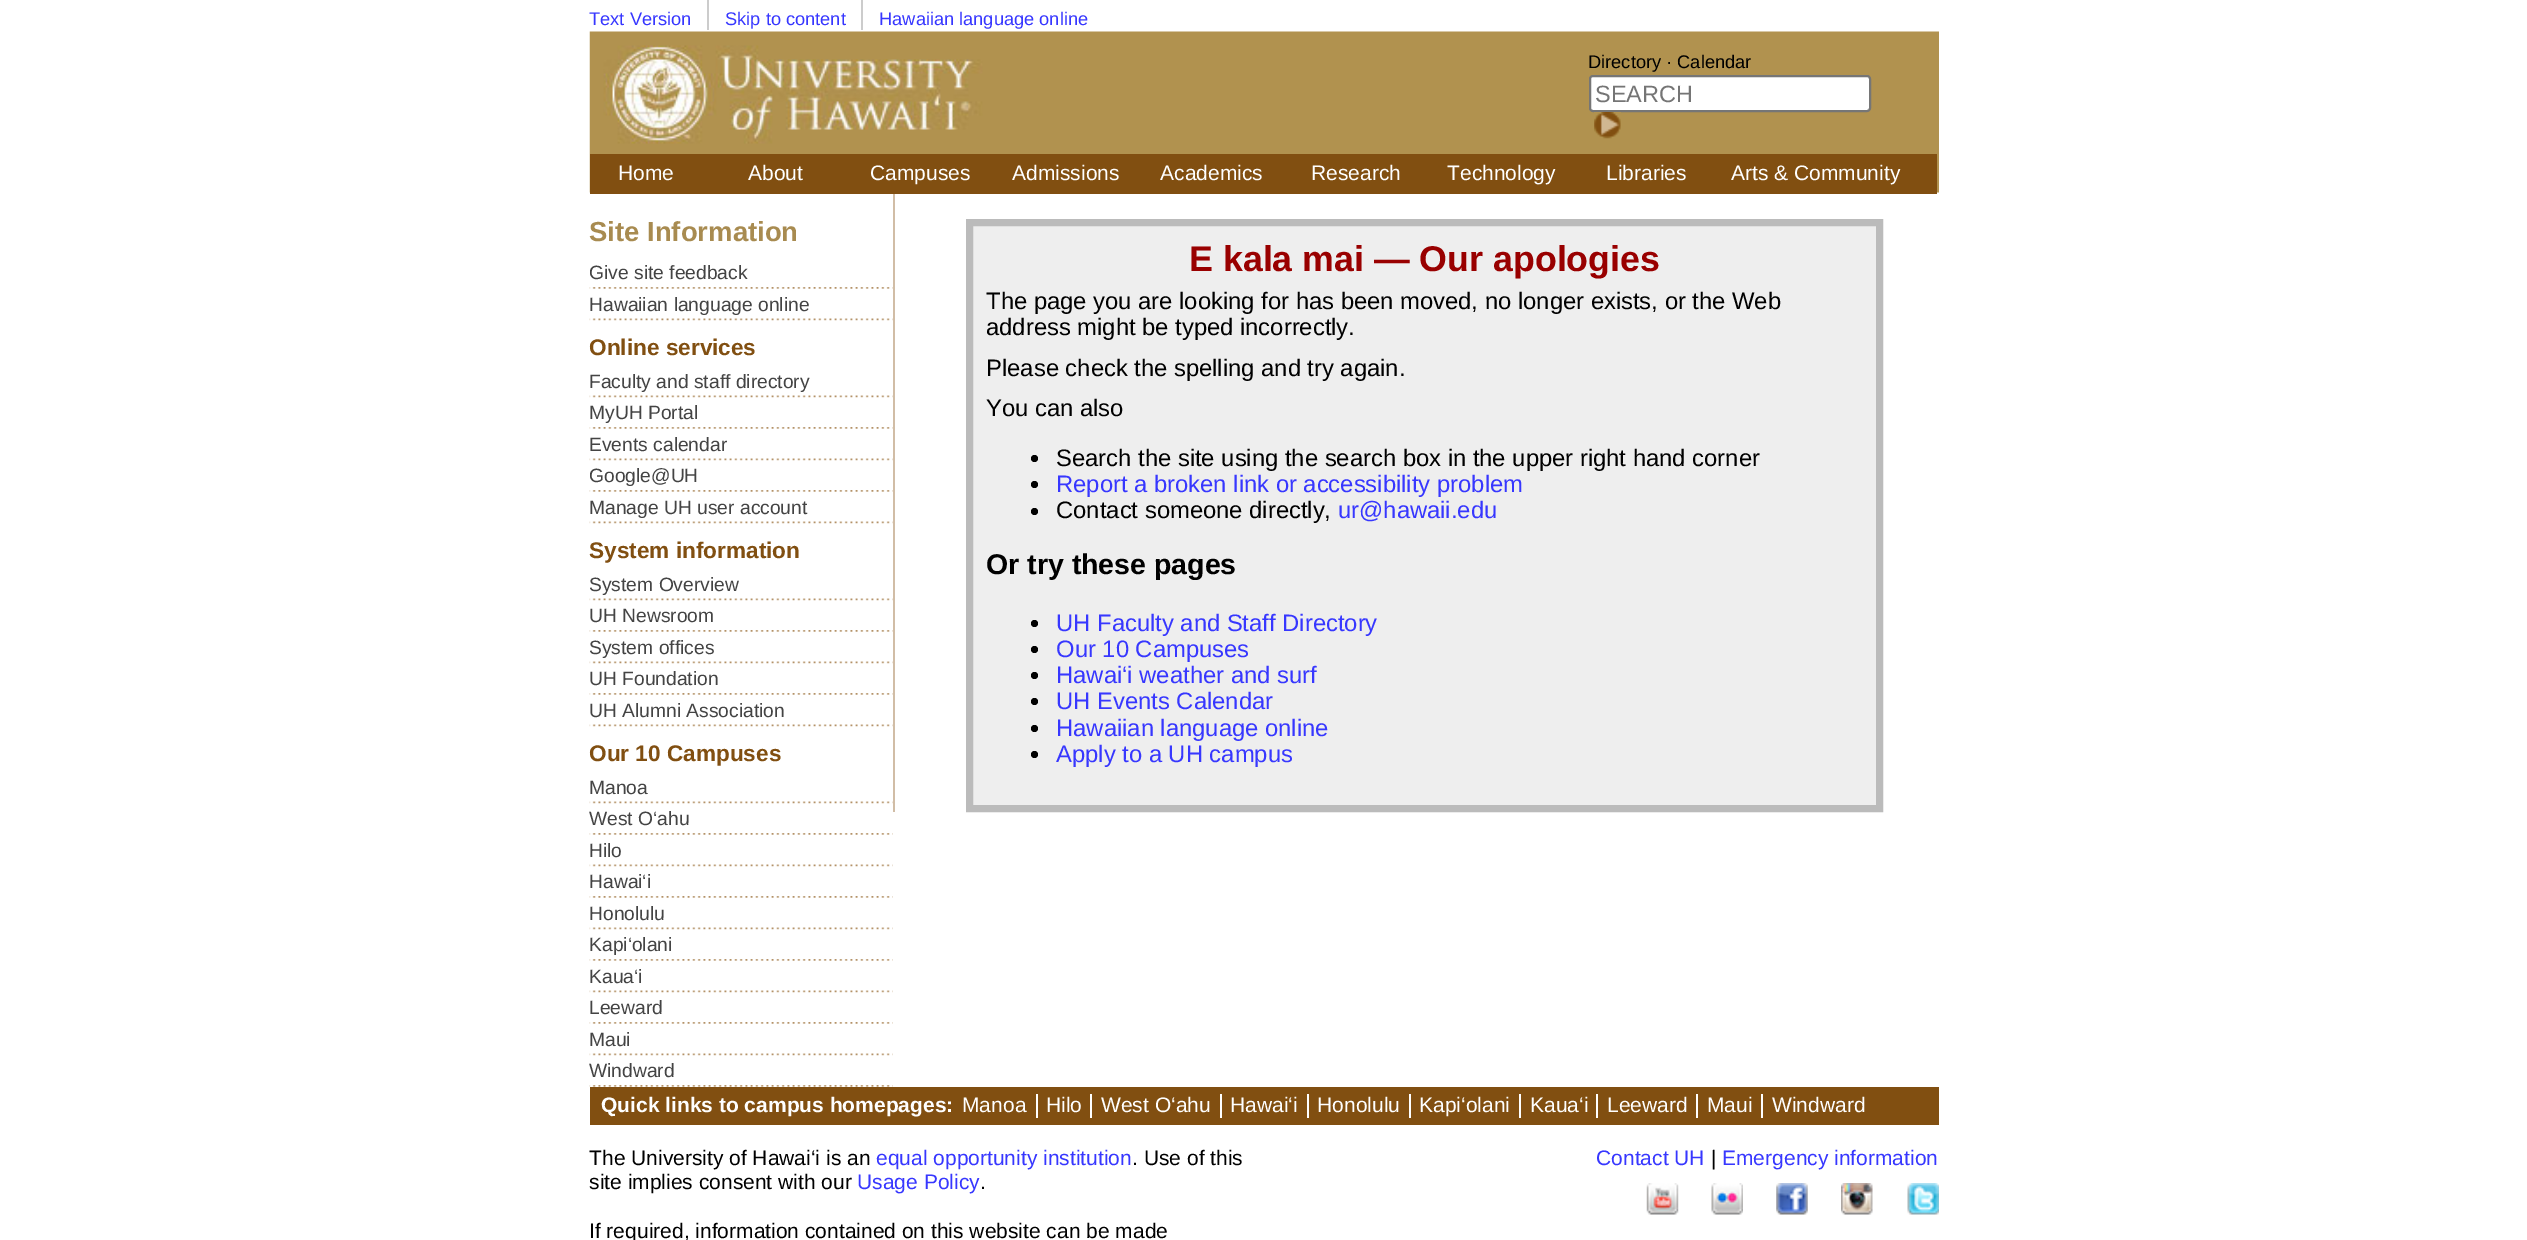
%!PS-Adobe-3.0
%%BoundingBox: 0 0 2527 1240
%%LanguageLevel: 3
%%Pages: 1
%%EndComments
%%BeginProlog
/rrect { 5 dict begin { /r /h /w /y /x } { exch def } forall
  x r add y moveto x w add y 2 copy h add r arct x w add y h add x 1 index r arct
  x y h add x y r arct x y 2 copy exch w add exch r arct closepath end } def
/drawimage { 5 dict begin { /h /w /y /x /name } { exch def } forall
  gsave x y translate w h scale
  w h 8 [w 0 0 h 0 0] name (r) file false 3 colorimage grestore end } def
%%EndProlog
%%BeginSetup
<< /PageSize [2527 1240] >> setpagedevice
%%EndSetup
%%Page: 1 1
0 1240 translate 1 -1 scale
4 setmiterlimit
1 setgray
0 0 2527 1240 rectfill
0.8 setgray
707 0 2 30 rectfill
861 0 2 30 rectfill
(images/1.raw) 589 31 1350 162 drawimage
1 setgray
1590 76 280 35 3 rrect gsave fill grestore
0.463 setgray
2 setlinewidth
stroke
(images/2.raw) 1594 112 27 27 drawimage
0.506 0.31 0.067 setrgbcolor
590 154 1347 40 rectfill
(images/3.raw) 589 287 304 2 drawimage
(images/4.raw) 589 318 304 3 drawimage
(images/5.raw) 589 395 304 3 drawimage
(images/6.raw) 589 427 304 2 drawimage
(images/7.raw) 589 458 304 3 drawimage
(images/6.raw) 589 490 304 2 drawimage
(images/8.raw) 589 521 304 3 drawimage
(images/9.raw) 589 598 304 3 drawimage
(images/10.raw) 589 630 304 2 drawimage
(images/8.raw) 589 661 304 3 drawimage
(images/10.raw) 589 693 304 2 drawimage
(images/8.raw) 589 724 304 3 drawimage
(images/7.raw) 589 801 304 3 drawimage
(images/10.raw) 589 833 304 2 drawimage
(images/11.raw) 589 864 304 3 drawimage
(images/10.raw) 589 896 304 2 drawimage
(images/7.raw) 589 927 304 3 drawimage
(images/3.raw) 589 959 304 2 drawimage
(images/4.raw) 589 990 304 3 drawimage
(images/6.raw) 589 1022 304 2 drawimage
(images/12.raw) 589 1053 304 3 drawimage
(images/3.raw) 589 1085 304 2 drawimage
0.82 0.741 0.651 setrgbcolor
893 194 2 618 rectfill
0.933 setgray
newpath 969.5 222.5 moveto 1879.5 222.5 lineto 1879.5 808.5 lineto 969.5 808.5 lineto closepath gsave fill grestore
0.733 setgray
7 setlinewidth
stroke
0 setgray
newpath 1034.5 458.5 3.5 0 360 arc closepath fill
newpath 1034.5 484.5 3.5 0 360 arc closepath fill
newpath 1034.5 511.5 3.5 0 360 arc closepath fill
newpath 1034.5 623.5 3.5 0 360 arc closepath fill
newpath 1034.5 649.5 3.5 0 360 arc closepath fill
newpath 1034.5 675.5 3.5 0 360 arc closepath fill
newpath 1034.5 701.5 3.5 0 360 arc closepath fill
newpath 1034.5 728.5 3.5 0 360 arc closepath fill
newpath 1034.5 754.5 3.5 0 360 arc closepath fill
0.506 0.31 0.067 setrgbcolor
590 1087 1349 38 rectfill
1 setgray
1036 1094 2 24 rectfill
1090 1094 2 24 rectfill
1220 1094 2 24 rectfill
1307 1094 2 24 rectfill
1409 1094 2 24 rectfill
1519 1094 2 24 rectfill
1596 1094 2 24 rectfill
1696 1094 2 24 rectfill
1761 1094 2 24 rectfill
(images/13.raw) 1646 1183 33 32 drawimage
(images/14.raw) 1711 1183 32 32 drawimage
(images/15.raw) 1776 1183 32 32 drawimage
(images/16.raw) 1841 1183 32 32 drawimage
(images/17.raw) 1907 1183 32 32 drawimage
/LiberationSans-Regular [18.25 0 0 -18.25 0 0] selectfont
0.216 0.216 1 setrgbcolor
589 25 moveto (Text Version) show
725 25 moveto (Skip to content) show
879 25 moveto (Hawaiian language online) show
0 setgray
1588 68 moveto (Directory · Calendar) show
/LiberationSans-Regular [23.5 0 0 -23.5 0 0] selectfont
0.459 setgray
1595 102 moveto (SEARCH) show
/LiberationSans-Regular [21 0 0 -21 0 0] selectfont
1 setgray
618 180 moveto (Home) show
748 180 moveto (About) show
870 180 moveto (Campuses) show
1012 180 moveto (Admissions) show
1160 180 moveto (Academics) show
1311 180 moveto (Research) show
1447 180 moveto (Technology) show
1606 180 moveto (Libraries) show
1731 180 moveto (Arts & Community) show
/LiberationSans-Bold [27.5 0 0 -27.5 0 0] selectfont
0.659 0.545 0.314 setrgbcolor
589 241 moveto (Site Information) show
/LiberationSans-Regular [19.25 0 0 -19.25 0 0] selectfont
0.267 setgray
589 279 moveto (Give site feedback) show
589 311 moveto (Hawaiian language online) show
/LiberationSans-Bold [22.6 0 0 -22.6 0 0] selectfont
0.506 0.31 0.067 setrgbcolor
589 355 moveto (Online services) show
/LiberationSans-Regular [19.25 0 0 -19.25 0 0] selectfont
0.267 setgray
589 388 moveto (Faculty and staff directory) show
589 419 moveto (MyUH Portal) show
589 451 moveto (Events calendar) show
589 482 moveto (Google@UH) show
589 514 moveto (Manage UH user account) show
/LiberationSans-Bold [22.6 0 0 -22.6 0 0] selectfont
0.506 0.31 0.067 setrgbcolor
589 558 moveto (System information) show
/LiberationSans-Regular [19.25 0 0 -19.25 0 0] selectfont
0.267 setgray
589 591 moveto (System Overview) show
589 622 moveto (UH Newsroom) show
589 654 moveto (System offices) show
589 685 moveto (UH Foundation) show
589 717 moveto (UH Alumni Association) show
/LiberationSans-Bold [22.6 0 0 -22.6 0 0] selectfont
0.506 0.31 0.067 setrgbcolor
589 761 moveto (Our 10 Campuses) show
/LiberationSans-Regular [19.25 0 0 -19.25 0 0] selectfont
0.267 setgray
589 794 moveto (Manoa) show
589 825 moveto (West O‘ahu) show
589 857 moveto (Hilo) show
589 888 moveto (Hawai‘i) show
589 920 moveto (Honolulu) show
589 951 moveto (Kapi‘olani) show
589 983 moveto (Kaua‘i) show
589 1014 moveto (Leeward) show
589 1046 moveto (Maui) show
589 1077 moveto (Windward) show
/LiberationSans-Bold [35.75 0 0 -35.75 0 0] selectfont
0.6 0 0 setrgbcolor
1189 271 moveto (E kala mai — Our apologies) show
/LiberationSans-Regular [23.8 0 0 -23.8 0 0] selectfont
0 setgray
986 309 moveto (The page you are looking for has been moved, no longer exists, or the Web) show
986 335 moveto (address might be typed incorrectly.) show
986 376 moveto (Please check the spelling and try again.) show
986 416 moveto (You can also) show
1056 466 moveto (Search the site using the search box in the upper right hand corner) show
0.216 0.216 1 setrgbcolor
1056 492 moveto (Report a broken link or accessibility problem) show
0 setgray
1056 518 moveto (Contact someone directly,) show
0.216 0.216 1 setrgbcolor
1338 518 moveto (ur@hawaii.edu) show
/LiberationSans-Bold [28.5 0 0 -28.5 0 0] selectfont
0 setgray
986 574 moveto (Or try these pages) show
/LiberationSans-Regular [23.8 0 0 -23.8 0 0] selectfont
0.216 0.216 1 setrgbcolor
1056 631 moveto (UH Faculty and Staff Directory) show
1056 657 moveto (Our 10 Campuses) show
1056 683 moveto (Hawai‘i weather and surf) show
1056 709 moveto (UH Events Calendar) show
1056 736 moveto (Hawaiian language online) show
1056 762 moveto (Apply to a UH campus) show
/LiberationSans-Bold [21 0 0 -21 0 0] selectfont
1 setgray
601 1112 moveto (Quick links to campus homepages:) show
/LiberationSans-Regular [21 0 0 -21 0 0] selectfont
962 1112 moveto (Manoa) show
1046 1112 moveto (Hilo) show
1101 1112 moveto (West O‘ahu) show
1230 1112 moveto (Hawai‘i) show
1317 1112 moveto (Honolulu) show
1419 1112 moveto (Kapi‘olani) show
1530 1112 moveto (Kaua‘i) show
1607 1112 moveto (Leeward) show
1707 1112 moveto (Maui) show
1772 1112 moveto (Windward) show
0 setgray
589 1165 moveto (The University of Hawai‘i is an) show
0.216 0.216 1 setrgbcolor
876 1165 moveto (equal opportunity institution) show
0 setgray
1132 1165 moveto (. Use of this) show
589 1189 moveto (site implies consent with our) show
0.216 0.216 1 setrgbcolor
857 1189 moveto (Usage Policy) show
0 setgray
980 1189 moveto (.) show
589 1238 moveto (If required, information contained on this website can be made) show
0.216 0.216 1 setrgbcolor
1596 1165 moveto (Contact UH) show
0 setgray
1711 1165 moveto (|) show
0.216 0.216 1 setrgbcolor
1722 1165 moveto (Emergency information) show
showpage
%%EOF
